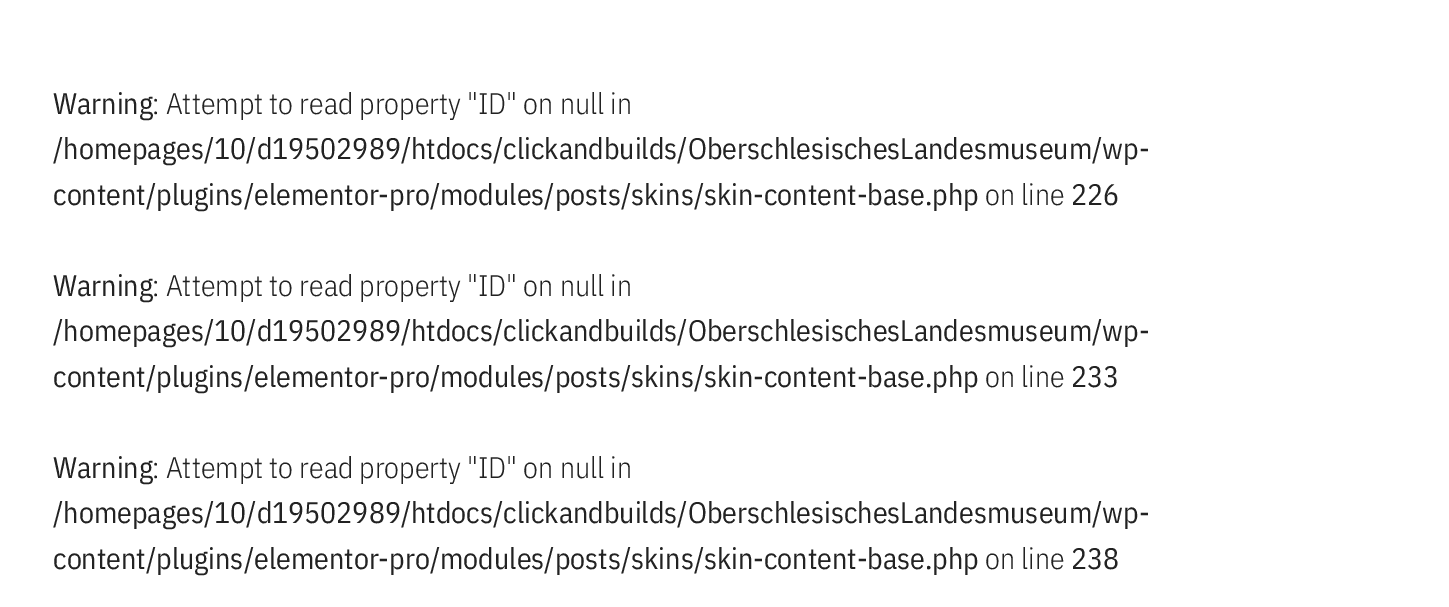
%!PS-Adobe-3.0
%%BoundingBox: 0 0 1449 607
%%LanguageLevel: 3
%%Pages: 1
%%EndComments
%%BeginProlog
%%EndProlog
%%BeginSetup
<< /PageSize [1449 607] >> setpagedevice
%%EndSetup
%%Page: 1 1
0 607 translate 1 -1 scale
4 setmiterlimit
1 setgray
0 0 1449 607 rectfill
/IBMPlexSansCondensed-Regular [29.75 0 0 -29.75 0 0] selectfont
0.133 setgray
53 114 moveto (Warning) show
/IBMPlexSansCondensed-Light [29.75 0 0 -29.75 0 0] selectfont
152 114 moveto (: Attempt to read property "ID" on null in) show
/IBMPlexSansCondensed-Regular [29.75 0 0 -29.75 0 0] selectfont
53 159 moveto (/homepages/10/d19502989/htdocs/clickandbuilds/OberschlesischesLandesmuseum/wp-) show
53 205 moveto (content/plugins/elementor-pro/modules/posts/skins/skin-content-base.php) show
/IBMPlexSansCondensed-Light [29.75 0 0 -29.75 0 0] selectfont
985 205 moveto (on line) show
/IBMPlexSansCondensed-Regular [29.75 0 0 -29.75 0 0] selectfont
1071 205 moveto (226) show
53 296 moveto (Warning) show
/IBMPlexSansCondensed-Light [29.75 0 0 -29.75 0 0] selectfont
152 296 moveto (: Attempt to read property "ID" on null in) show
/IBMPlexSansCondensed-Regular [29.75 0 0 -29.75 0 0] selectfont
53 341 moveto (/homepages/10/d19502989/htdocs/clickandbuilds/OberschlesischesLandesmuseum/wp-) show
53 387 moveto (content/plugins/elementor-pro/modules/posts/skins/skin-content-base.php) show
/IBMPlexSansCondensed-Light [29.75 0 0 -29.75 0 0] selectfont
985 387 moveto (on line) show
/IBMPlexSansCondensed-Regular [29.75 0 0 -29.75 0 0] selectfont
1071 387 moveto (233) show
53 478 moveto (Warning) show
/IBMPlexSansCondensed-Light [29.75 0 0 -29.75 0 0] selectfont
152 478 moveto (: Attempt to read property "ID" on null in) show
/IBMPlexSansCondensed-Regular [29.75 0 0 -29.75 0 0] selectfont
53 523 moveto (/homepages/10/d19502989/htdocs/clickandbuilds/OberschlesischesLandesmuseum/wp-) show
53 569 moveto (content/plugins/elementor-pro/modules/posts/skins/skin-content-base.php) show
/IBMPlexSansCondensed-Light [29.75 0 0 -29.75 0 0] selectfont
985 569 moveto (on line) show
/IBMPlexSansCondensed-Regular [29.75 0 0 -29.75 0 0] selectfont
1071 569 moveto (238) show
showpage
%%EOF
